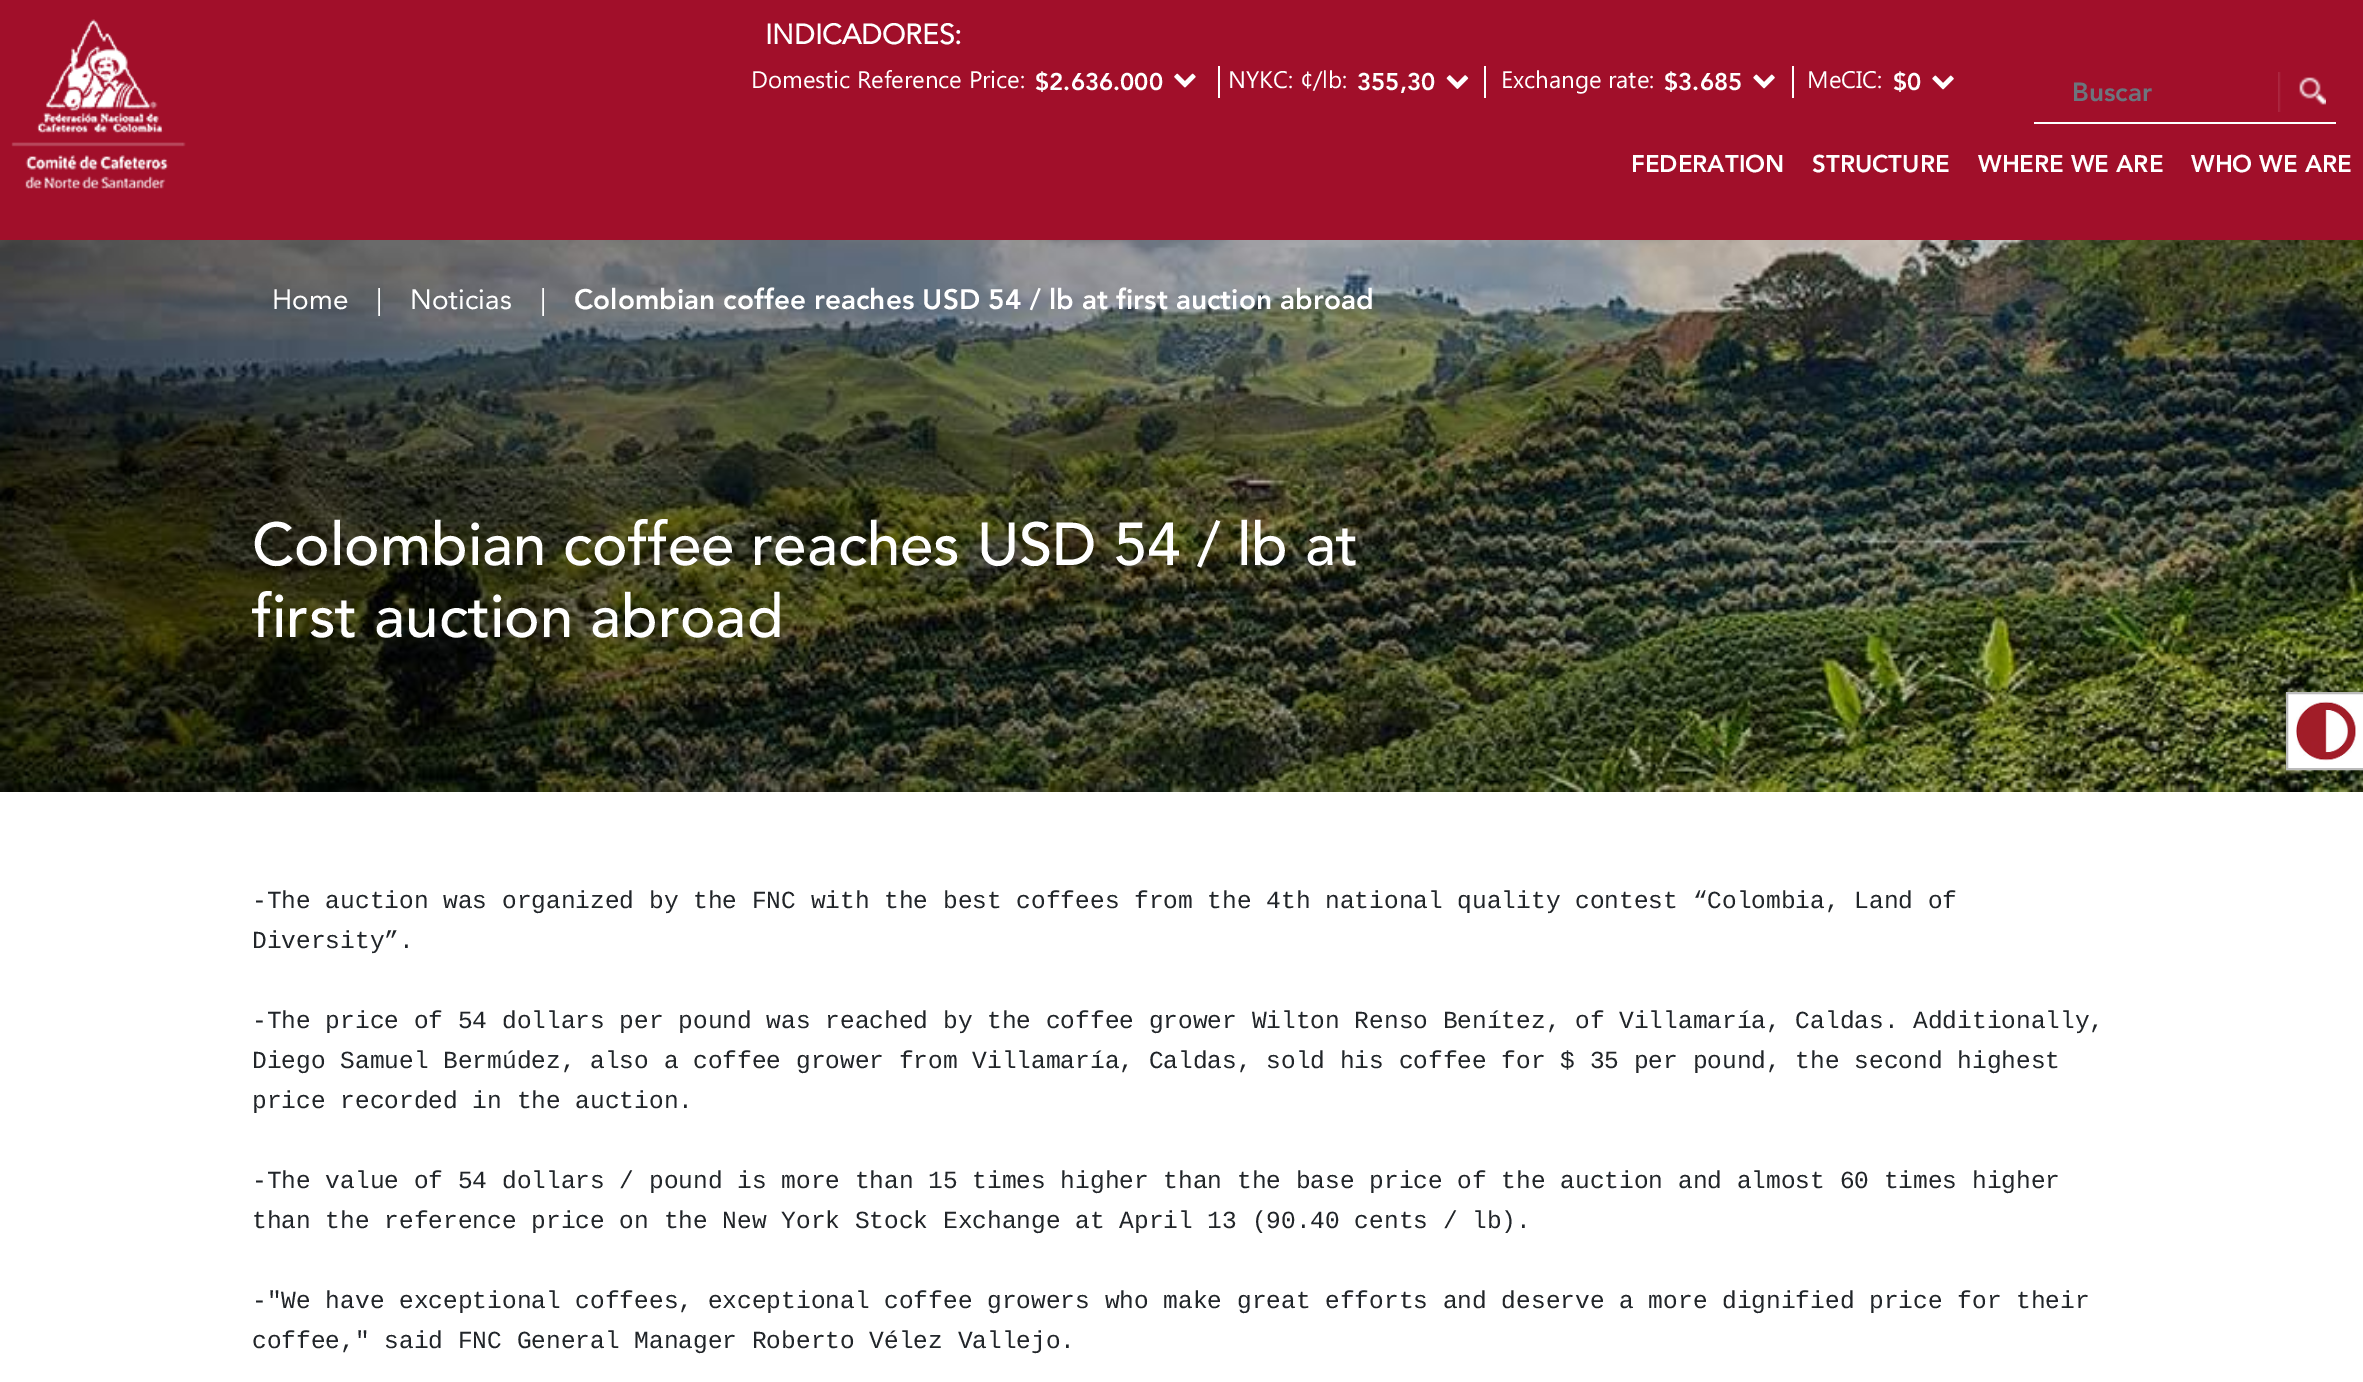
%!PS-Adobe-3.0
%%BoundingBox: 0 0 2363 1382
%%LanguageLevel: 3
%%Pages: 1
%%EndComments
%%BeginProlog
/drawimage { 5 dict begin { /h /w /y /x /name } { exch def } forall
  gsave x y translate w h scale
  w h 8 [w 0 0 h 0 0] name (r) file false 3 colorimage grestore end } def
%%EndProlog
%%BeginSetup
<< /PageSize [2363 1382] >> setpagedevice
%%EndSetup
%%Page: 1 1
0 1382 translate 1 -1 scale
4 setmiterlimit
1 setgray
0 0 2363 1382 rectfill
0.631 0.059 0.165 setrgbcolor
0 0 2363 240 rectfill
(images/1.raw) 11 19 175 170 drawimage
(images/2.raw) 1174 73 22 15 drawimage
1 setgray
1218 66 2 32 rectfill
(images/3.raw) 1446 75 23 14 drawimage
1484 66 2 32 rectfill
(images/4.raw) 1753 74 22 15 drawimage
1792 66 2 32 rectfill
(images/4.raw) 1932 75 22 15 drawimage
(images/5.raw) 2278 72 48 40 drawimage
2034 122 302 2 rectfill
(images/6.raw) 0 240 2363 552 drawimage
newpath 2287 693 moveto 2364 693 lineto 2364 769 lineto 2287 769 lineto closepath gsave fill grestore
0.733 setgray
2 setlinewidth
stroke
(images/7.raw) 2296 701 60 60 drawimage
/Avenir-Bold [28 0 0 -28 0 0] selectfont
1 setgray
765 44 moveto (INDICADORES:) show
/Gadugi-Regular [24 0 0 -24 0 0] selectfont
751 88 moveto (Domestic Reference Price:) show
/Avenir-Black [24 0 0 -24 0 0] selectfont
1035 90 moveto ($2.636.000) show
/Gadugi-Regular [24 0 0 -24 0 0] selectfont
1228 88 moveto (NYKC: ¢/lb:) show
/Avenir-Black [24 0 0 -24 0 0] selectfont
1357 90 moveto (355,30) show
/Gadugi-Regular [24 0 0 -24 0 0] selectfont
1501 88 moveto (Exchange rate:) show
/Avenir-Black [24 0 0 -24 0 0] selectfont
1664 90 moveto ($3.685) show
/Gadugi-Regular [24 0 0 -24 0 0] selectfont
1807 88 moveto (MeCIC:) show
/Avenir-Black [24 0 0 -24 0 0] selectfont
1893 90 moveto ($0) show
/Avenir-Black [26 0 0 -26 0 0] selectfont
0.424 0.459 0.49 setrgbcolor
2072 101 moveto (Buscar) show
/Avenir-Black [24 0 0 -24 0 0] selectfont
1 setgray
1631 172 moveto (FEDERATION) show
1812 172 moveto (STRUCTURE) show
1978 172 moveto (WHERE WE ARE) show
2191 172 moveto (WHO WE ARE) show
/Avenir-Regular [28 0 0 -28 0 0] selectfont
272 309 moveto (Home) show
376 309 moveto (|) show
410 309 moveto (Noticias) show
540 309 moveto (|) show
/Avenir-Black [28 0 0 -28 0 0] selectfont
574 309 moveto (Colombian coffee reaches USD 54 / lb at first auction abroad) show
/Avenir-Medium [60 0 0 -60 0 0] selectfont
252 565 moveto (Colombian coffee reaches USD 54 / lb at) show
252 637 moveto (first auction abroad) show
/LiberationMono-Regular [24.5 0 0 -24.5 0 0] selectfont
0.129 0.145 0.161 setrgbcolor
252 908 moveto (-The auction was organized by the FNC with the best coffees from the 4th national quality contest “Colombia, Land of) show
252 948 moveto (Diversity”.) show
252 1028 moveto (-The price of 54 dollars per pound was reached by the coffee grower Wilton Renso Benítez, of Villamaría, Caldas. Additionally,) show
252 1068 moveto (Diego Samuel Bermúdez, also a coffee grower from Villamaría, Caldas, sold his coffee for $ 35 per pound, the second highest) show
252 1108 moveto (price recorded in the auction.) show
252 1188 moveto (-The value of 54 dollars / pound is more than 15 times higher than the base price of the auction and almost 60 times higher) show
252 1228 moveto (than the reference price on the New York Stock Exchange at April 13 \(90.40 cents / lb\).) show
252 1308 moveto (-"We have exceptional coffees, exceptional coffee growers who make great efforts and deserve a more dignified price for their) show
252 1348 moveto (coffee," said FNC General Manager Roberto Vélez Vallejo.) show
showpage
%%EOF
